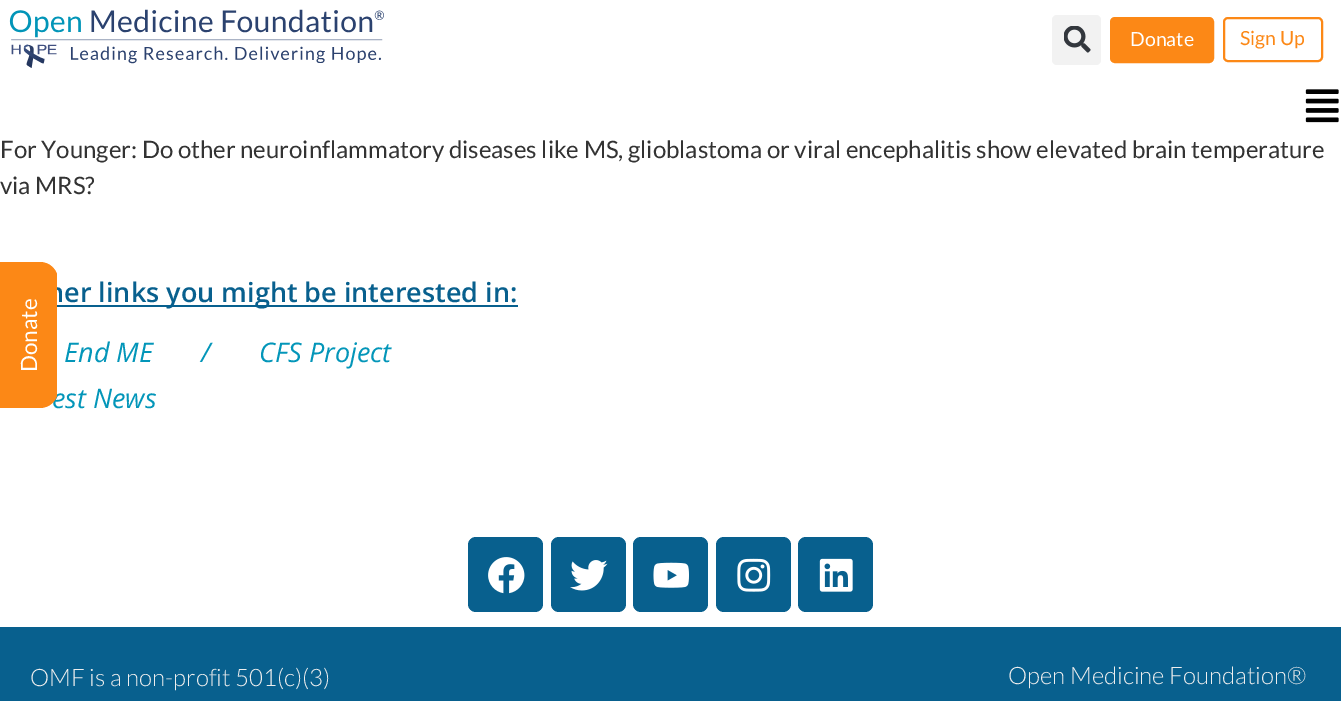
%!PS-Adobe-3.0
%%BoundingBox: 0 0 1341 701
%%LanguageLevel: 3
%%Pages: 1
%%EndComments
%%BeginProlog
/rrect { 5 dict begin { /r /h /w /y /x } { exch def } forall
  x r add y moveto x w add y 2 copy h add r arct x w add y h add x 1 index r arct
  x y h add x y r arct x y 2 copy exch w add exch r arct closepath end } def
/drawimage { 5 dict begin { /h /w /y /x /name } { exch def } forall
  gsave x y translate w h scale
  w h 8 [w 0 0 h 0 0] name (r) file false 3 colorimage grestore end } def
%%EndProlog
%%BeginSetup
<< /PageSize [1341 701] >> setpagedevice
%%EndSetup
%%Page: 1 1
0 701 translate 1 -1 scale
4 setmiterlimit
1 setgray
0 0 1341 701 rectfill
(images/1.raw) 9 9 375 59 drawimage
0.949 setgray
1052 15 49 50 5 rrect fill
(images/2.raw) 1064 26 27 27 drawimage
0.988 0.533 0.086 setrgbcolor
1111.5 18.5 101 43 3.5 rrect gsave fill grestore
3 setlinewidth
stroke
2 setlinewidth
1224 18 98 43 4 rrect stroke
(images/3.raw) 1305 89 34 34 drawimage
0.031 0.376 0.557 setrgbcolor
57 305 461 2 rectfill
468 537 75 75 8 rrect fill
(images/4.raw) 488 557 37 37 drawimage
551 537 75 75 8 rrect fill
(images/5.raw) 570 560 38 31 drawimage
633 537 75 75 8 rrect fill
(images/6.raw) 653 562 36 26 drawimage
716 537 75 75 8 rrect fill
(images/7.raw) 737 558 34 34 drawimage
798 537 75 75 8 rrect fill
(images/8.raw) 819 558 34 34 drawimage
0 627 1341 74 rectfill
/Lato-Regular [19.5 0 0 -19.5 0 0] selectfont
1 setgray
1130 46 moveto (Donate) show
0.988 0.533 0.086 setrgbcolor
1240 45 moveto (Sign Up) show
/Lato-Regular [24 0 0 -24 0 0] selectfont
0.2 setgray
0 158 moveto (For Younger: Do other neuroinflammatory diseases like MS, glioblastoma or viral encephalitis show elevated brain temperature) show
0 194 moveto (via MRS?) show
/OpenSans-SemiBold [27 0 0 -27 0 0] selectfont
0.031 0.376 0.557 setrgbcolor
47 302 moveto (her links you might be interested in:) show
/OpenSans-Italic [27 0 0 -27 0 0] selectfont
0.012 0.588 0.725 setrgbcolor
64 362 moveto (End ME / CFS Project) show
52 408 moveto (est News) show
gsave
0 0 57 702 rectclip
0.988 0.533 0.086 setrgbcolor
newpath -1 408 moveto -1 262 lineto 40 262 lineto 50 262 58 270 58 280 curveto 58 390 lineto 58 400 50 408 40 408 curveto closepath fill
grestore
/Lato-Regular [22.5 0 0 -22.5 0 0] selectfont
1 setgray
gsave 37 372 translate -90 rotate 0 0 moveto (Donate) show grestore
/Lato-Light [24 0 0 -24 0 0] selectfont
0.933 setgray
30 686 moveto (OMF is a non-profit 501\(c\)\(3\)) show
1008 684 moveto (Open Medicine Foundation®) show
showpage
%%EOF
